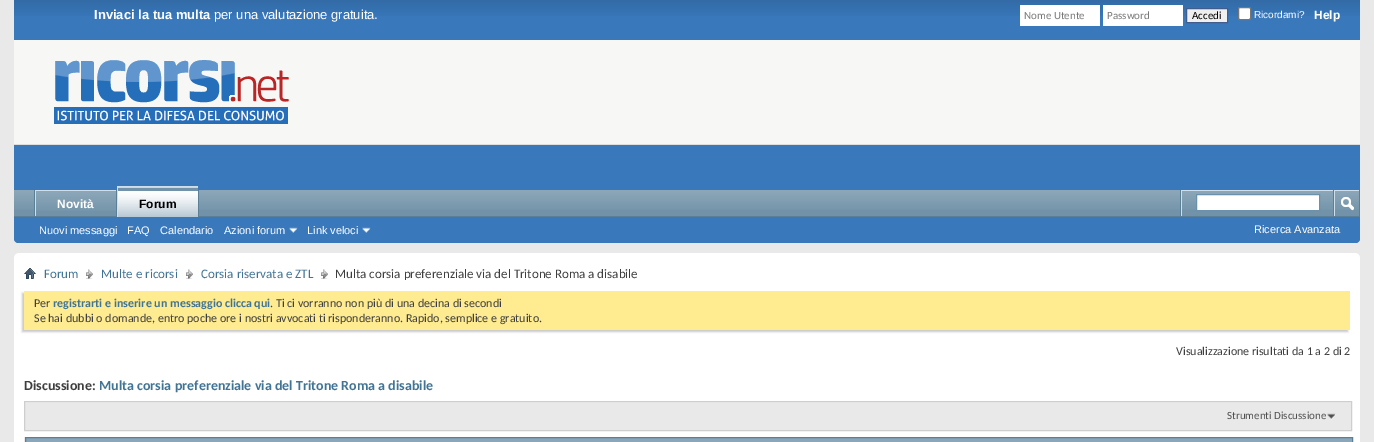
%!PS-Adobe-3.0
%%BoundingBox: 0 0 1374 442
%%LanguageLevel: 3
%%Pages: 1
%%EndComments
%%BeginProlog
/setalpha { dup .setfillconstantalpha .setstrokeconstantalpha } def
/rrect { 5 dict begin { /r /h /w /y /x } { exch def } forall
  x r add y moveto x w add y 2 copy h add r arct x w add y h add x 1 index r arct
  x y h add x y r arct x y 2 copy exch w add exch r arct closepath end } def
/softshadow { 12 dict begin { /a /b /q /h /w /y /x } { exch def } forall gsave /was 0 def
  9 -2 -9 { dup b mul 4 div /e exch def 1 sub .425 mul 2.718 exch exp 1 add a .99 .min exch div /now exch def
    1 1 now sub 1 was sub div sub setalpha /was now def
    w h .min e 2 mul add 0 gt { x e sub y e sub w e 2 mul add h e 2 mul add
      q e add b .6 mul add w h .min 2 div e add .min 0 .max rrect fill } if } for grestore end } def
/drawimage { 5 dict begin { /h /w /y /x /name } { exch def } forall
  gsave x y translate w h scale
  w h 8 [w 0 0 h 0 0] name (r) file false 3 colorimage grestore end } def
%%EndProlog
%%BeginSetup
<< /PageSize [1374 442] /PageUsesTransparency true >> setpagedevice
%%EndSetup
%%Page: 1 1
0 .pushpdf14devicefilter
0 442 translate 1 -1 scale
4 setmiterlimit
0.914 setgray
0 0 1374 442 rectfill
0.22 0.471 0.733 setrgbcolor
newpath 14 -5 moveto 1360 -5 lineto 1360 238 lineto 1360 241 1358 243 1355 243 curveto 19 243 lineto 16 243 14 241 14 238 curveto closepath fill
(images/1.raw) 14 0 1346 16 drawimage
1 setgray
1020 5 80 21 rectfill
1103 5 80 21 rectfill
0.937 setgray
newpath 1186.5 8.5 moveto 1227.5 8.5 lineto 1227.5 22.5 lineto 1186.5 22.5 lineto closepath gsave fill grestore
0.255 0.365 0.553 setrgbcolor
stroke
1 setgray
1238.5 7.5 12 12 1.5 rrect gsave fill grestore
0.463 setgray
stroke
0.969 0.969 0.965 setrgbcolor
14 40 1346 104 rectfill
0.871 setgray
14 144 1346 1 rectfill
(images/2.raw) 54 60 235 64 drawimage
0.22 0.471 0.733 setrgbcolor
newpath 14 190 moveto 1360 190 lineto 1360 238 lineto 1360 241 1358 243 1355 243 curveto 19 243 lineto 16 243 14 241 14 238 curveto closepath fill
0.443 0.573 0.659 setrgbcolor
14 190 1345 26 rectfill
(images/3.raw) 14 190 1345 20 drawimage
0.353 0.498 0.592 setrgbcolor
116 190 1 27 rectfill
34 190 1 27 rectfill
0.443 0.573 0.659 setrgbcolor
36 191 80 19 rectfill
(images/4.raw) 36 191 80 20 drawimage
0.808 0.875 0.922 setrgbcolor
35 190 81 1 rectfill
35 190 1 27 rectfill
0.353 0.498 0.592 setrgbcolor
198 190 1 26 rectfill
14 216 1346 1 rectfill
0.443 0.573 0.659 setrgbcolor
118 187 80 30 rectfill
(images/5.raw) 118 187 80 30 drawimage
0.808 0.875 0.922 setrgbcolor
117 186 81 1 rectfill
117 186 1 31 rectfill
(images/6.raw) 289 227 9 6 drawimage
(images/6.raw) 362 227 9 6 drawimage
0.353 0.498 0.592 setrgbcolor
1180 190 1 26 rectfill
0.808 0.875 0.922 setrgbcolor
1181 190 152 1 rectfill
1181 190 1 26 rectfill
1 setgray
newpath 1196.5 194.5 moveto 1319.5 194.5 lineto 1319.5 210.5 lineto 1196.5 210.5 lineto closepath gsave fill grestore
0.42 0.569 0.671 setrgbcolor
stroke
0.353 0.498 0.592 setrgbcolor
1359 190 1 26 rectfill
1333 190 1 26 rectfill
0.808 0.875 0.922 setrgbcolor
1334 190 25 1 rectfill
1334 190 1 26 rectfill
(images/7.raw) 1341 197 13 14 drawimage
1 setgray
14 253 1346 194 5 rrect fill
(images/8.raw) 24 268 12 11 drawimage
(images/9.raw) 86 269 7 10 drawimage
(images/9.raw) 186 269 7 10 drawimage
(images/9.raw) 321 269 7 10 drawimage
0.784 setgray
22 293 1326 39 0 1 1 softshadow
1 0.922 0.565 setrgbcolor
24 291 1326 39 rectfill
0.914 setgray
25 403 1326 27 rectfill
0.929 setgray
24 402 1328 1 rectfill
0.808 setgray
24.5 401.5 1327 29 rectstroke
(images/10.raw) 1327 413 9 7 drawimage
0.914 setgray
24.5 437.5 1327 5 rectstroke
0.545 0.651 0.722 setrgbcolor
newpath 25.5 437.5 moveto 1352.5 437.5 lineto 1352.5 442.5 lineto 25.5 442.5 lineto closepath gsave fill grestore
0.353 0.498 0.592 setrgbcolor
stroke
/LiberationSans-Bold [13 0 0 -13 0 0] selectfont
1 setgray
94 19 moveto (Inviaci la tua multa) show
/LiberationSans-Regular [13 0 0 -13 0 0] selectfont
214 19 moveto (per una valutazione gratuita.) show
/Carlito-Regular [11 0 0 -11 0 0] selectfont
0.467 setgray
1024 19 moveto (Nome Utente) show
1107 19 moveto (Password) show
0 setgray
1192 19 moveto (Accedi) show
/LiberationSans-Regular [10 0 0 -10 0 0] selectfont
1 setgray
1254 18 moveto (Ricordami?) show
/LiberationSans-Bold [12 0 0 -12 0 0] selectfont
1314 19 moveto (Help) show
57 208 moveto (Novità) show
0 setgray
139 208 moveto (Forum) show
/LiberationSans-Regular [11 0 0 -11 0 0] selectfont
1 setgray
39 234 moveto (Nuovi messaggi) show
127 234 moveto (FAQ) show
160 234 moveto (Calendario) show
224 234 moveto (Azioni forum) show
307 234 moveto (Link veloci) show
1254 233 moveto (Ricerca Avanzata) show
/Carlito-Regular [13 0 0 -13 0 0] selectfont
0.255 0.451 0.58 setrgbcolor
44 278 moveto (Forum) show
101 278 moveto (Multe e ricorsi) show
201 278 moveto (Corsia riservata e ZTL) show
0.243 setgray
335 278 moveto (Multa corsia preferenziale via del Tritone Roma a disabile) show
/Carlito-Regular [12 0 0 -12 0 0] selectfont
34 307 moveto (Per) show
/Carlito-Bold [12 0 0 -12 0 0] selectfont
0.255 0.451 0.58 setrgbcolor
53 307 moveto (registrarti e inserire un messaggio clicca qui) show
/Carlito-Regular [12 0 0 -12 0 0] selectfont
0.243 setgray
270 307 moveto (. Ti ci vorranno non più di una decina di secondi) show
34 322 moveto (Se hai dubbi o domande, entro poche ore i nostri avvocati ti risponderanno. Rapido, semplice e gratuito.) show
1176 355 moveto (Visualizzazione risultati da 1 a 2 di 2) show
/Carlito-Bold [14 0 0 -14 0 0] selectfont
24 390 moveto (Discussione:) show
0.255 0.451 0.58 setrgbcolor
99 390 moveto (Multa corsia preferenziale via del Tritone Roma a disabile) show
/Carlito-Regular [11 0 0 -11 0 0] selectfont
0.306 setgray
1227 419 moveto (Strumenti Discussione) show
.poppdf14devicefilter showpage
%%EOF
